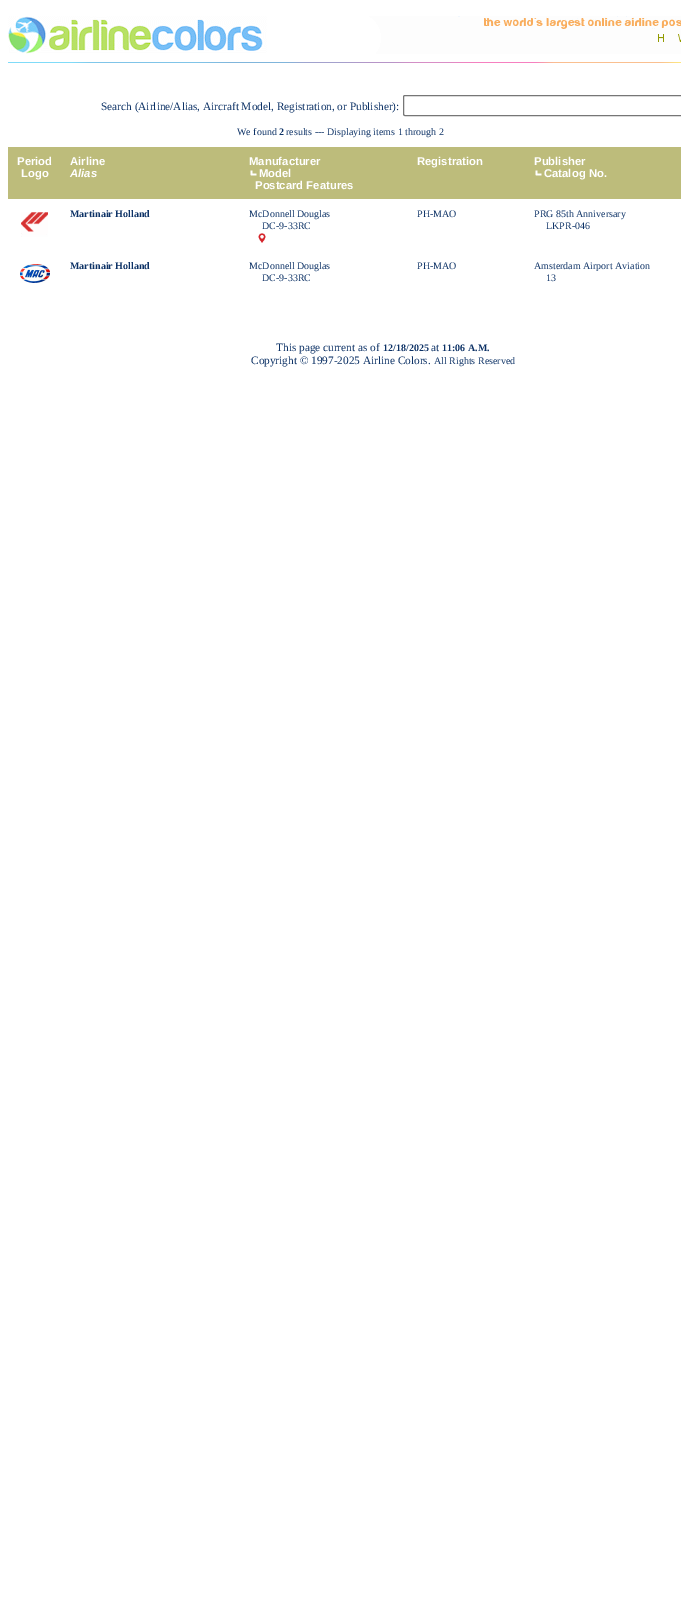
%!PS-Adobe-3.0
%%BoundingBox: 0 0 681 1599
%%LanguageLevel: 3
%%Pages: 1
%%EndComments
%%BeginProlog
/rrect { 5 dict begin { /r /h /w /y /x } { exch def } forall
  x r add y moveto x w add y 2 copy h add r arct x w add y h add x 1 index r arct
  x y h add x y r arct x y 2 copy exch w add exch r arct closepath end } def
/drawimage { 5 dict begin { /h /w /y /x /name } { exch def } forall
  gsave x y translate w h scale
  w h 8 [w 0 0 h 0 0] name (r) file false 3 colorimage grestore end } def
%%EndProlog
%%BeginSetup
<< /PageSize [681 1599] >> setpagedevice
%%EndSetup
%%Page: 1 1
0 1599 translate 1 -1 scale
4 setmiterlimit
1 setgray
0 0 681 1599 rectfill
(images/1.raw) 8 16 673 38 drawimage
(images/2.raw) 8 62 673 1 drawimage
0.463 setgray
403.5 95.5 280 20 1.5 rrect stroke
0.741 0.737 0.482 setrgbcolor
8 147 673 52 rectfill
(images/3.raw) 250 170 7 6 drawimage
(images/3.raw) 535 170 7 6 drawimage
(images/4.raw) 21 212 27 25 drawimage
(images/5.raw) 258 233 8 10 drawimage
(images/6.raw) 20 264 30 19 drawimage
/LiberationSerif-Regular [11.3 0 0 -11.3 0 0] selectfont
0.051 0.196 0.4 setrgbcolor
101 110 moveto (Search \(Airline/Alias, Aircraft Model, Registration, or Publisher\):) show
/LiberationSerif-Regular [10 0 0 -10 0 0] selectfont
237 135 moveto (We found) show
/LiberationSerif-Bold [10 0 0 -10 0 0] selectfont
279 135 moveto (2) show
/LiberationSerif-Regular [10 0 0 -10 0 0] selectfont
286 135 moveto (results --- Displaying items 1 through 2) show
/LiberationSans-Bold [11.3 0 0 -11.3 0 0] selectfont
1 setgray
17 165 moveto (Period) show
21 177 moveto (Logo) show
70 165 moveto (Airline) show
/LiberationSans-BoldItalic [11.3 0 0 -11.3 0 0] selectfont
70 177 moveto (Alias) show
/LiberationSans-Bold [11.3 0 0 -11.3 0 0] selectfont
249 165 moveto (Manufacturer) show
259 177 moveto (Model) show
255 189 moveto (Postcard Features) show
417 165 moveto (Registration) show
534 165 moveto (Publisher) show
544 177 moveto (Catalog No.) show
/LiberationSerif-Bold [10 0 0 -10 0 0] selectfont
0.051 0.196 0.4 setrgbcolor
70 217 moveto (Martinair Holland) show
/LiberationSerif-Regular [10 0 0 -10 0 0] selectfont
249 217 moveto (McDonnell Douglas) show
262 229 moveto (DC-9-33RC) show
417 217 moveto (PH-MAO) show
534 217 moveto (PRG 85th Anniversary) show
546 229 moveto (LKPR-046) show
/LiberationSerif-Bold [10 0 0 -10 0 0] selectfont
70 269 moveto (Martinair Holland) show
/LiberationSerif-Regular [10 0 0 -10 0 0] selectfont
249 269 moveto (McDonnell Douglas) show
262 281 moveto (DC-9-33RC) show
417 269 moveto (PH-MAO) show
534 269 moveto (Amsterdam Airport Aviation) show
546 281 moveto (13) show
/LiberationSerif-Regular [11.3 0 0 -11.3 0 0] selectfont
276 351 moveto (This page current as of) show
/LiberationSerif-Bold [10 0 0 -10 0 0] selectfont
383 351 moveto (12/18/2025) show
/LiberationSerif-Regular [11.3 0 0 -11.3 0 0] selectfont
431 351 moveto (at) show
/LiberationSerif-Bold [10 0 0 -10 0 0] selectfont
442 351 moveto (11:06 A.M.) show
/LiberationSerif-Regular [11.3 0 0 -11.3 0 0] selectfont
251 364 moveto (Copyright © 1997-2025 Airline Colors.) show
/LiberationSerif-Regular [10 0 0 -10 0 0] selectfont
434 364 moveto (All Rights Reserved) show
showpage
%%EOF
